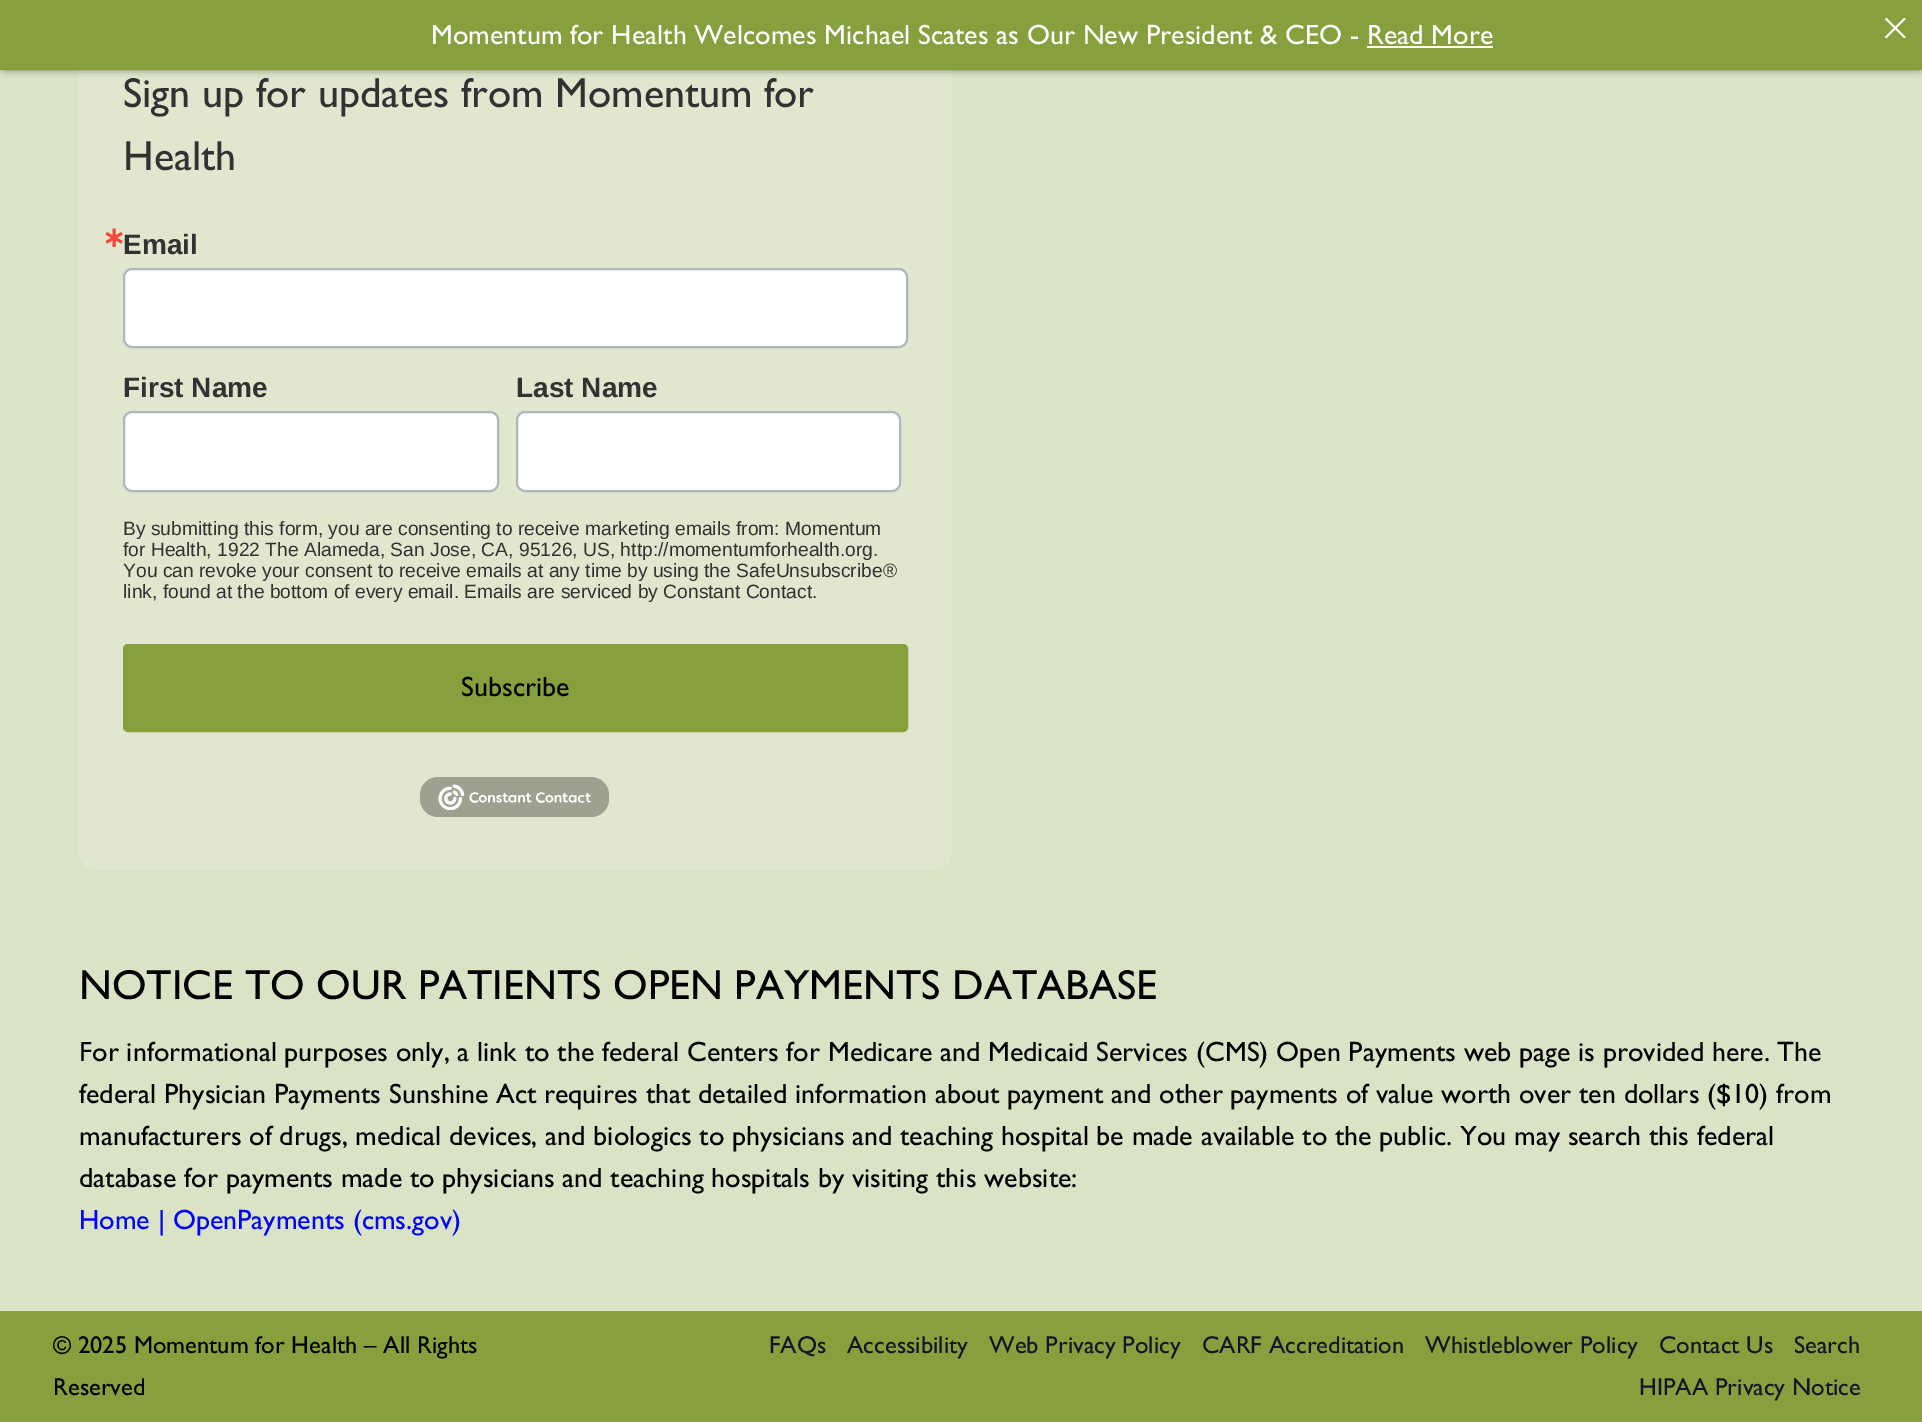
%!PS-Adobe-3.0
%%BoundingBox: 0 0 1922 1422
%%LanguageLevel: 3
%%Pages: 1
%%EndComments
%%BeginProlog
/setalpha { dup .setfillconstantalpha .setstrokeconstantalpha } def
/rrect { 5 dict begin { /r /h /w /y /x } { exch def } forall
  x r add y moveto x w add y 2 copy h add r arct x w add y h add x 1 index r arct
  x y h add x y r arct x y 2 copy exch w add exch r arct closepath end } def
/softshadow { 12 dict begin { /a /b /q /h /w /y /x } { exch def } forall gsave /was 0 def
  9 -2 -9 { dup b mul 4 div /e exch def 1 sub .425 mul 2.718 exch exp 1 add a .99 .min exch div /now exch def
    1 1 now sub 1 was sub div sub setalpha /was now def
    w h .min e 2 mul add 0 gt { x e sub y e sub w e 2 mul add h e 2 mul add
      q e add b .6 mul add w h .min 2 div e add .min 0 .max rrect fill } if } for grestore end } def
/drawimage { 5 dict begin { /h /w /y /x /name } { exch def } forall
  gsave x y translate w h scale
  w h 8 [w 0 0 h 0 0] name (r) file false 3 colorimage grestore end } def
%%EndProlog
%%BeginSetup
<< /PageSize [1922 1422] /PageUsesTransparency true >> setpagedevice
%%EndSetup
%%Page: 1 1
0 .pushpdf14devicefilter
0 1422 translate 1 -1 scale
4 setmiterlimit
0.855 0.89 0.773 setrgbcolor
0 0 1922 1422 rectfill
0.878 0.906 0.808 setrgbcolor
79 26 873 844 18 rrect fill
0 setgray
4 7 1916 63 0 3.5 0.5 softshadow
0.522 0.627 0.235 setrgbcolor
0 0 1922 70 rectfill
1 setgray
1367 46 126 2 rectfill
(images/1.raw) 1884 17 22 22 drawimage
124 269 783 78 8 rrect gsave fill grestore
0.69 0.714 0.733 setrgbcolor
2 setlinewidth
stroke
1 setgray
124 412 374 79 8 rrect gsave fill grestore
0.69 0.714 0.733 setrgbcolor
stroke
1 setgray
517 412 383 79 8 rrect gsave fill grestore
0.69 0.714 0.733 setrgbcolor
stroke
0.522 0.627 0.235 setrgbcolor
124 645 783 86 4 rrect gsave fill grestore
stroke
0.616 0.635 0.565 setrgbcolor
420 777 189 40 18 rrect fill
(images/2.raw) 438 784 153 26 drawimage
0.522 0.627 0.235 setrgbcolor
0 1311 1922 111 rectfill
/GillSans-Regular [28 0 0 -28 0 0] selectfont
1 setgray
431 44 moveto (Momentum for Health Welcomes Michael Scates as Our New President & CEO - Read More) show
/GillSans-Regular [42 0 0 -42 0 0] selectfont
0.196 setgray
123 107 moveto (Sign up for updates from Momentum for) show
123 170 moveto (Health) show
/DejaVuSans-Bold [28 0 0 -28 0 0] selectfont
0.961 0.275 0.231 setrgbcolor
102 247 moveto (∗) show
/LiberationSans-Bold [28 0 0 -28 0 0] selectfont
0.196 setgray
123 254 moveto (Email) show
123 397 moveto (First Name) show
516 397 moveto (Last Name) show
/LiberationSans-Regular [19.25 0 0 -19.25 0 0] selectfont
123 535 moveto (By submitting this form, you are consenting to receive marketing emails from: Momentum) show
123 556 moveto (for Health, 1922 The Alameda, San Jose, CA, 95126, US, http://momentumforhealth.org.) show
123 577 moveto (You can revoke your consent to receive emails at any time by using the SafeUnsubscribe®) show
123 598 moveto (link, found at the bottom of every email. Emails are serviced by Constant Contact.) show
/GillSans-Regular [28 0 0 -28 0 0] selectfont
0 setgray
461 696 moveto (Subscribe) show
/GillSans-Regular [42 0 0 -42 0 0] selectfont
79 999 moveto (NOTICE TO OUR PATIENTS OPEN PAYMENTS DATABASE) show
/GillSans-Regular [28 0 0 -28 0 0] selectfont
79 1061 moveto (For informational purposes only, a link to the federal Centers for Medicare and Medicaid Services \(CMS\) Open Payments web page is provided here. The) show
79 1103 moveto (federal Physician Payments Sunshine Act requires that detailed information about payment and other payments of value worth over ten dollars \($10\) from) show
79 1145 moveto (manufacturers of drugs, medical devices, and biologics to physicians and teaching hospital be made available to the public. You may search this federal) show
79 1187 moveto (database for payments made to physicians and teaching hospitals by visiting this website:) show
0 0 1 setrgbcolor
79 1229 moveto (Home | OpenPayments \(cms.gov\)) show
/GillSans-Regular [24.5 0 0 -24.5 0 0] selectfont
0 setgray
53 1353 moveto (© 2025 Momentum for Health – All Rights) show
53 1395 moveto (Reserved) show
0.078 0.078 0.169 setrgbcolor
769 1353 moveto (FAQs) show
847 1353 moveto (Accessibility) show
989 1353 moveto (Web Privacy Policy) show
1202 1353 moveto (CARF Accreditation) show
1425 1353 moveto (Whistleblower Policy) show
1659 1353 moveto (Contact Us) show
1794 1353 moveto (Search) show
1639 1395 moveto (HIPAA Privacy Notice) show
.poppdf14devicefilter showpage
%%EOF
